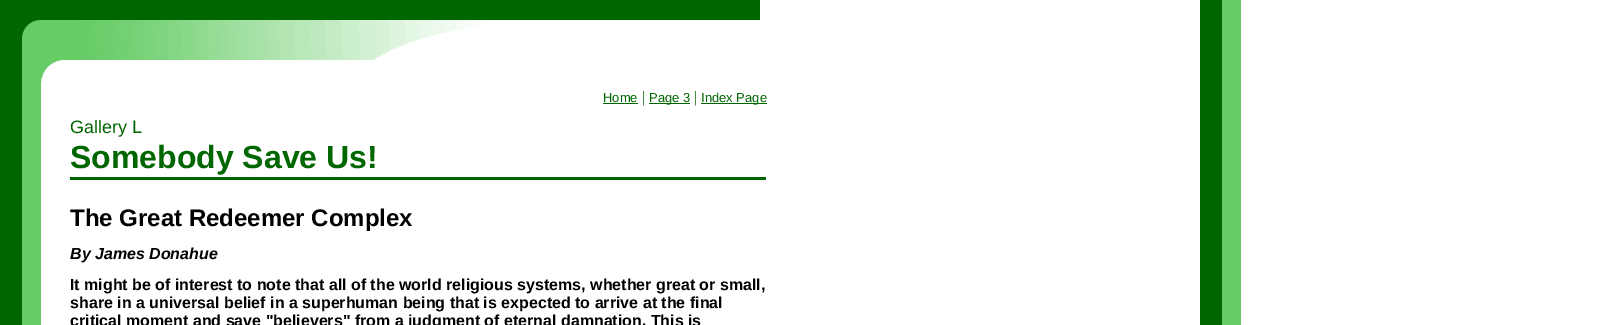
%!PS-Adobe-3.0
%%BoundingBox: 0 0 1617 325
%%LanguageLevel: 3
%%Pages: 1
%%EndComments
%%BeginProlog
/drawimage { 5 dict begin { /h /w /y /x /name } { exch def } forall
  gsave x y translate w h scale
  w h 8 [w 0 0 h 0 0] name (r) file false 3 colorimage grestore end } def
%%EndProlog
%%BeginSetup
<< /PageSize [1617 325] >> setpagedevice
%%EndSetup
%%Page: 1 1
0 325 translate 1 -1 scale
4 setmiterlimit
1 setgray
0 0 1617 325 rectfill
(images/1.raw) 0 0 1241 325 drawimage
0 0.4 0 setrgbcolor
22 0 738 20 rectfill
(images/2.raw) 22 20 40 63 drawimage
(images/3.raw) 62 20 422 40 drawimage
603 103 35 1 rectfill
649 103 41 1 rectfill
701 103 66 1 rectfill
70 177 696 3 rectfill
/LiberationSans-Regular [13 0 0 -13 0 0] selectfont
603 102 moveto (Home) show
/LiberationSerif-Regular [16 0 0 -16 0 0] selectfont
642 102 moveto (|) show
/LiberationSans-Regular [13 0 0 -13 0 0] selectfont
649 102 moveto (Page 3) show
/LiberationSerif-Regular [16 0 0 -16 0 0] selectfont
694 102 moveto (|) show
/LiberationSans-Regular [13 0 0 -13 0 0] selectfont
701 102 moveto (Index Page) show
/LiberationSans-Regular [18 0 0 -18 0 0] selectfont
70 133 moveto (Gallery L) show
/LiberationSans-Bold [32 0 0 -32 0 0] selectfont
70 168 moveto (Somebody Save Us!) show
/LiberationSans-Bold [24 0 0 -24 0 0] selectfont
0 setgray
70 226 moveto (The Great Redeemer Complex) show
/LiberationSans-BoldItalic [16 0 0 -16 0 0] selectfont
70 259 moveto (By James Donahue) show
/LiberationSans-Bold [16 0 0 -16 0 0] selectfont
70 290 moveto (It might be of interest to note that all of the world religious systems, whether great or small,) show
70 308 moveto (share in a universal belief in a superhuman being that is expected to arrive at the final) show
70 326 moveto (critical moment and save "believers" from a judgment of eternal damnation. This is) show
showpage
%%EOF
